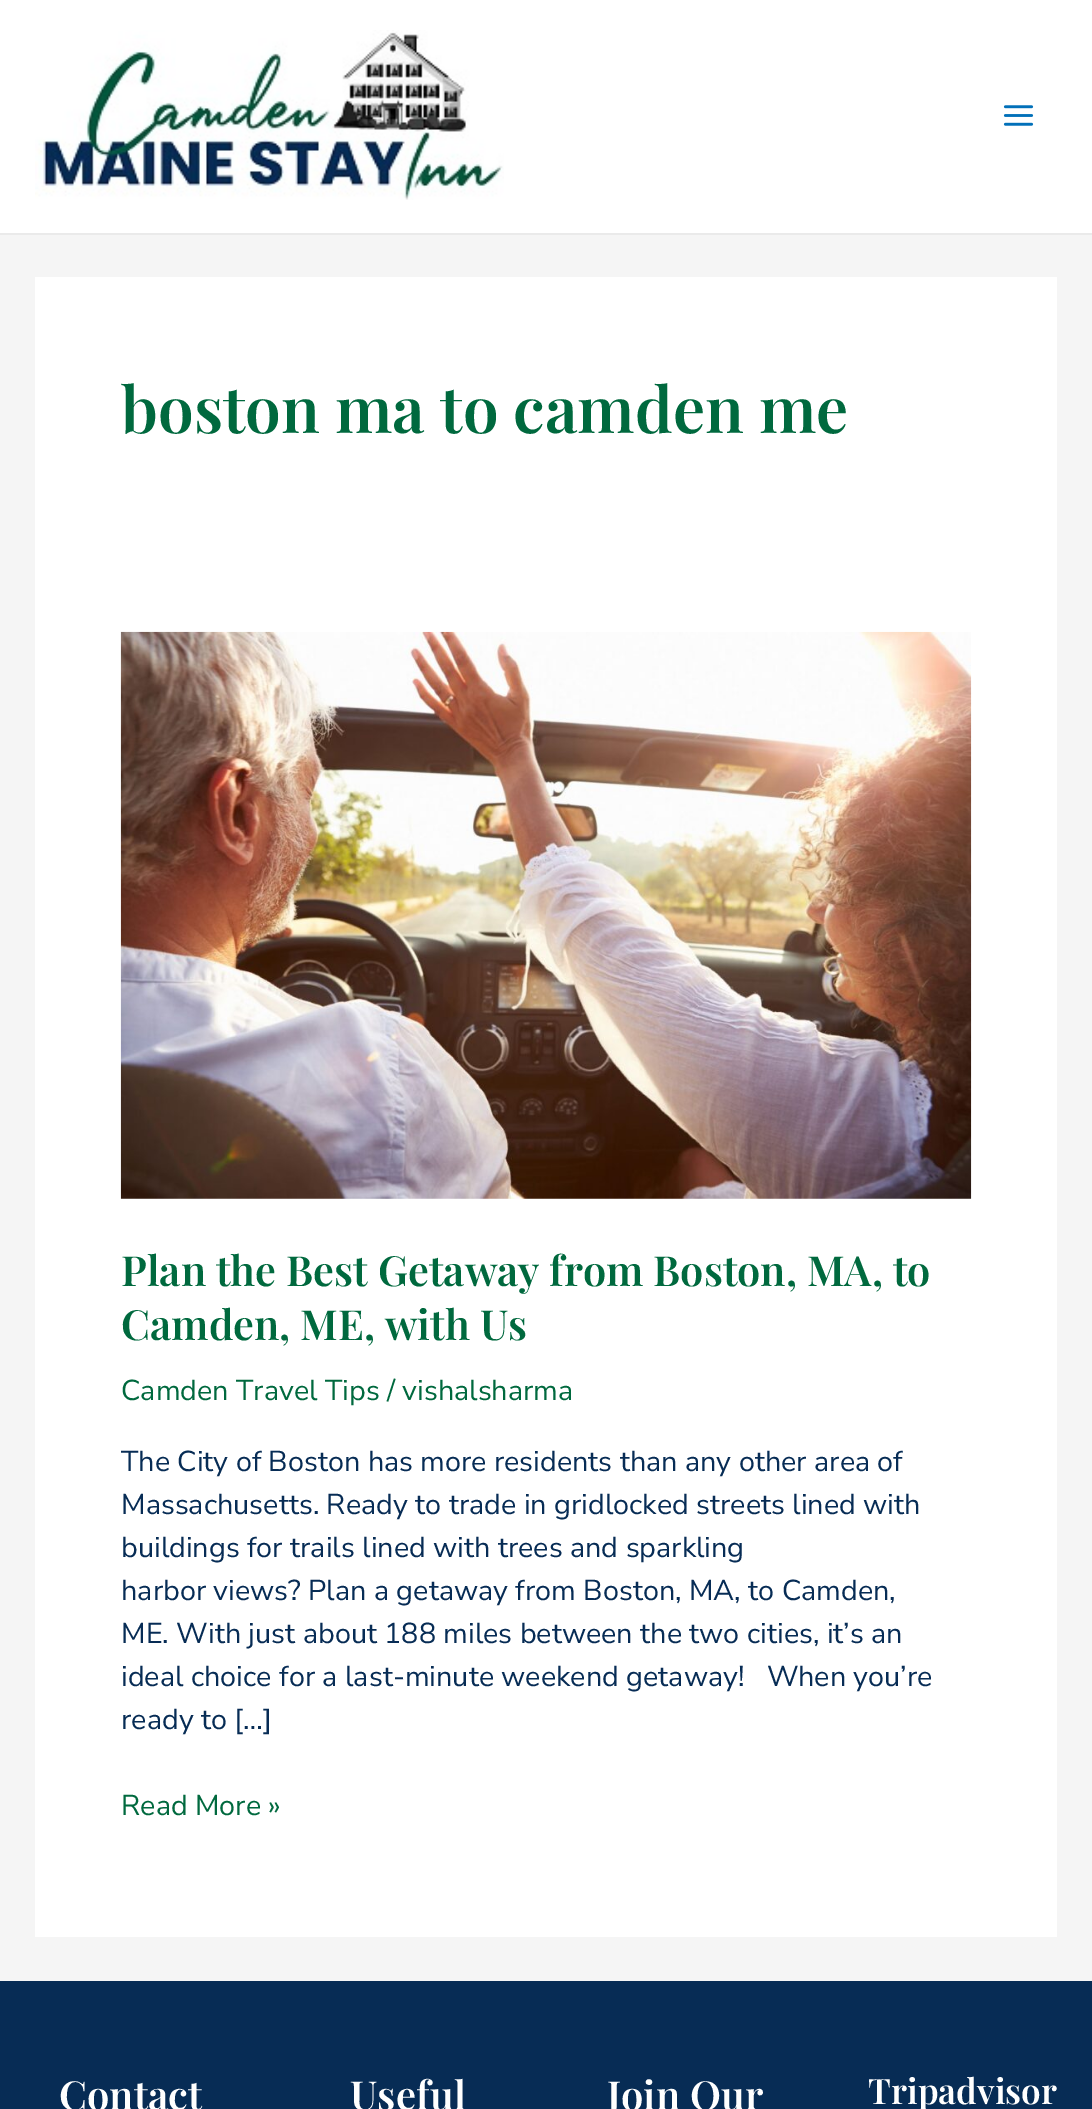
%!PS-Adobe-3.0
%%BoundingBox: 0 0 1092 2109
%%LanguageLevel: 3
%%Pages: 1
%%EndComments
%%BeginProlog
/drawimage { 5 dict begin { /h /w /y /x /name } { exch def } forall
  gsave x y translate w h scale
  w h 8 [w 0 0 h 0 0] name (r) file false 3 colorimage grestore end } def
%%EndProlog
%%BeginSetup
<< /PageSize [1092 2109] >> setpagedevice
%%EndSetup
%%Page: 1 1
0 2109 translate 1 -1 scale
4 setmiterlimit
0.961 setgray
0 0 1092 2109 rectfill
1 setgray
0 0 1092 233 rectfill
0.918 setgray
0 233 1092 2 rectfill
(images/1.raw) 35 30 469 170 drawimage
(images/2.raw) 1003 105 31 21 drawimage
1 setgray
35 277 1022 1660 rectfill
(images/3.raw) 120 631 852 568 drawimage
0.027 0.173 0.333 setrgbcolor
0 1981 1092 128 rectfill
/PlayfairDisplay-SemiBold [63.8 0 0 -63.8 0 0] selectfont
0 0.412 0.243 setrgbcolor
121 433 moveto (boston ma to camden me) show
/PlayfairDisplay-SemiBold [41.5 0 0 -41.5 0 0] selectfont
121 1286 moveto (Plan the Best Getaway from Boston, MA, to) show
121 1340 moveto (Camden, ME, with Us) show
/NunitoSans-Regular [28.75 0 0 -28.75 0 0] selectfont
121 1400 moveto (Camden Travel Tips / vishalsharma) show
0.027 0.173 0.333 setrgbcolor
121 1471 moveto (The City of Boston has more residents than any other area of) show
121 1514 moveto (Massachusetts. Ready to trade in gridlocked streets lined with) show
121 1557 moveto (buildings for trails lined with trees and sparkling) show
121 1600 moveto (harbor views? Plan a getaway from Boston, MA, to Camden,) show
121 1643 moveto (ME. With just about 188 miles between the two cities, it’s an) show
121 1686 moveto (ideal choice for a last-minute weekend getaway!   When you’re) show
121 1729 moveto (ready to […]) show
0 0.412 0.243 setrgbcolor
121 1815 moveto (Read More ») show
/PlayfairDisplay-SemiBold [40 0 0 -40 0 0] selectfont
1 setgray
59 2110 moveto (Contact) show
350 2110 moveto (Useful) show
607 2110 moveto (Join Our) show
/PlayfairDisplay-SemiBold [35 0 0 -35 0 0] selectfont
868 2104 moveto (Tripadvisor) show
showpage
%%EOF
